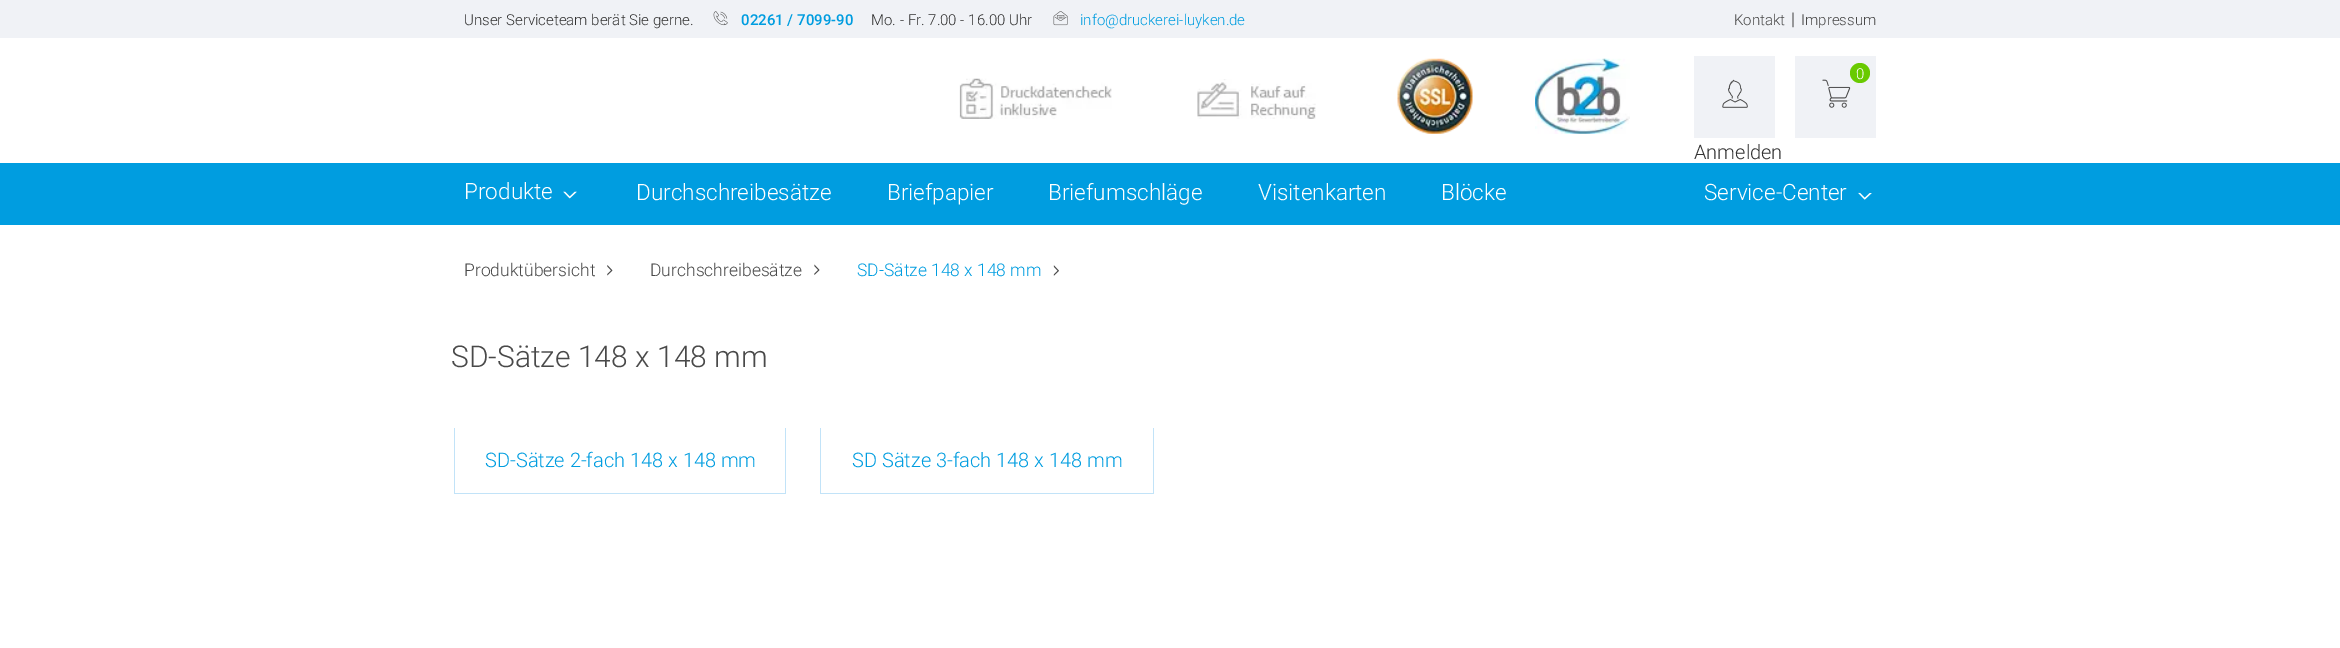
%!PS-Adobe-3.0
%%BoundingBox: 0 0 2340 648
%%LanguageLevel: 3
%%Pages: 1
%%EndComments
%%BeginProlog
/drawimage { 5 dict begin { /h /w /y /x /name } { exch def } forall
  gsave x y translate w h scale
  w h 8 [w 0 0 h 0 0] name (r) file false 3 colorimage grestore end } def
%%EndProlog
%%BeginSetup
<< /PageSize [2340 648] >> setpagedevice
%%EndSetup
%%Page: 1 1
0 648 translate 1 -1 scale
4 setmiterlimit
1 setgray
0 0 2340 648 rectfill
0.941 0.949 0.965 setrgbcolor
0 0 2340 38 rectfill
(images/1.raw) 713 11 15 15 drawimage
(images/2.raw) 1053 11 15 15 drawimage
(images/3.raw) 959 78 153 41 drawimage
(images/4.raw) 1197 79 119 40 drawimage
(images/5.raw) 1397 58 76 76 drawimage
(images/6.raw) 1535 58 95 76 drawimage
1795 56 81 82 rectfill
(images/7.raw) 1822 79 29 29 drawimage
0.412 0.792 0 setrgbcolor
newpath 1860 73 10 0 360 arc closepath fill
0.941 0.949 0.965 setrgbcolor
1694 56 81 82 rectfill
(images/8.raw) 1722 79 26 29 drawimage
0 0.616 0.878 setrgbcolor
0 163 2340 62 rectfill
(images/9.raw) 563 191 14 8 drawimage
(images/10.raw) 1858 192 14 8 drawimage
(images/11.raw) 607 265 6 11 drawimage
(images/12.raw) 814 264 6 11 drawimage
(images/13.raw) 1053 265 6 11 drawimage
0.761 0.89 0.973 setrgbcolor
785 428 1 66 rectfill
454 493 332 1 rectfill
454 428 1 66 rectfill
1153 428 1 66 rectfill
820 493 334 1 rectfill
820 428 1 66 rectfill
/Roboto-Light [15 0 0 -15 0 0] selectfont
0.2 setgray
464 25 moveto (Unser Serviceteam berät Sie gerne.) show
/Roboto-Medium [15 0 0 -15 0 0] selectfont
0 0.616 0.878 setrgbcolor
741 25 moveto (02261 / 7099-90) show
/Roboto-Light [15 0 0 -15 0 0] selectfont
0.2 setgray
871 25 moveto (Mo. - Fr. 7.00 - 16.00 Uhr) show
0 0.616 0.878 setrgbcolor
1080 25 moveto (info@druckerei-luyken.de) show
0.286 setgray
1734 25 moveto (Kontakt) show
/Roboto-Light [17.5 0 0 -17.5 0 0] selectfont
1791 25 moveto (|) show
/Roboto-Light [15 0 0 -15 0 0] selectfont
1801 25 moveto (Impressum) show
1 setgray
1856 79 moveto (0) show
/Roboto-Light [20 0 0 -20 0 0] selectfont
0.2 setgray
1694 159 moveto (Anmelden) show
/Roboto-Light [22.5 0 0 -22.5 0 0] selectfont
1 setgray
464 199 moveto (Produkte) show
636 200 moveto (Durchschreibesätze) show
887 200 moveto (Briefpapier) show
1048 200 moveto (Briefumschläge) show
1258 200 moveto (Visitenkarten) show
1441 200 moveto (Blöcke) show
1704 200 moveto (Service-Center) show
/Roboto-Light [17.5 0 0 -17.5 0 0] selectfont
0.286 setgray
464 276 moveto (Produktübersicht) show
650 276 moveto (Durchschreibesätze) show
0 0.616 0.878 setrgbcolor
857 276 moveto (SD-Sätze 148 x 148 mm) show
/Roboto-Light [30 0 0 -30 0 0] selectfont
0.286 setgray
451 367 moveto (SD-Sätze 148 x 148 mm) show
/Roboto-Light [20 0 0 -20 0 0] selectfont
0 0.616 0.878 setrgbcolor
485 467 moveto (SD-Sätze 2-fach 148 x 148 mm) show
852 467 moveto (SD Sätze 3-fach 148 x 148 mm) show
showpage
%%EOF
